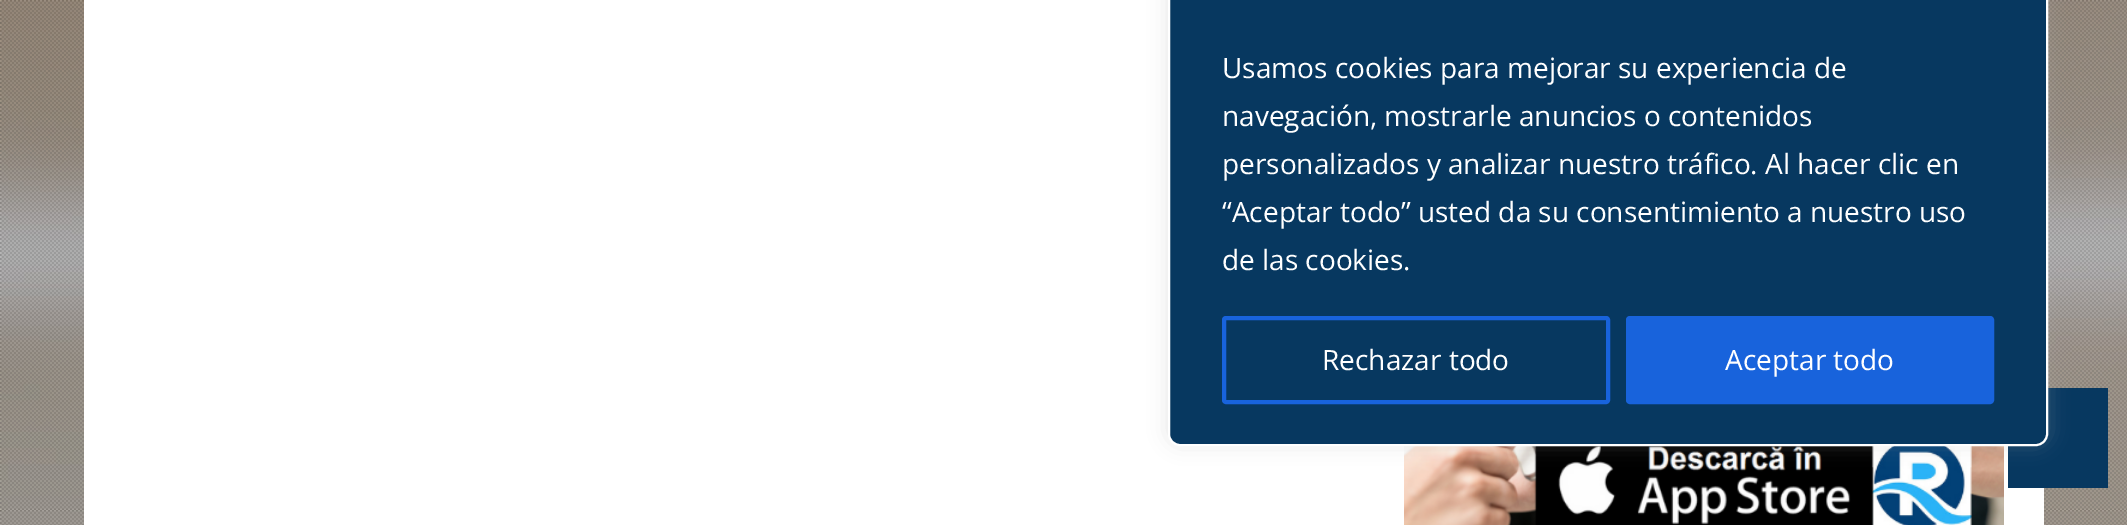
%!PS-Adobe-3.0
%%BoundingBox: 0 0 2127 525
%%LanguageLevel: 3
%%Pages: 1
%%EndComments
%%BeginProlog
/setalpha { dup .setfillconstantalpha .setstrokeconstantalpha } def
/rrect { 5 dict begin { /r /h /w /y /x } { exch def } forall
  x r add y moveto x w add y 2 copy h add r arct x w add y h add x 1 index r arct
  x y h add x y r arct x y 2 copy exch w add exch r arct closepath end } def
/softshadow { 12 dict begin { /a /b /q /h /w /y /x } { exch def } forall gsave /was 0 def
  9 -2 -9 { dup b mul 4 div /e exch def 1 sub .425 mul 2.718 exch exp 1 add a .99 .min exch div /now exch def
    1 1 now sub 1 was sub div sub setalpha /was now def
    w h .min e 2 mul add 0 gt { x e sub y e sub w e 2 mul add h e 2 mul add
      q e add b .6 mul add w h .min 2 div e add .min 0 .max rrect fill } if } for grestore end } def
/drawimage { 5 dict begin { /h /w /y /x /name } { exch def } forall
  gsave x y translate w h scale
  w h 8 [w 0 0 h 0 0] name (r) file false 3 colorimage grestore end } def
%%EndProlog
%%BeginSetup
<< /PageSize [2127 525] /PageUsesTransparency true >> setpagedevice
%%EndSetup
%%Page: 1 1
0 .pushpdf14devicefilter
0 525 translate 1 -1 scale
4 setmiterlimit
1 setgray
0 0 2127 525 rectfill
(images/1.raw) 0 0 2127 525 drawimage
84 0 1960 525 rectfill
(images/2.raw) 1404 446 600 79 drawimage
0.027 0.22 0.376 setrgbcolor
2008 388 100 100 rectfill
0.675 0.671 0.671 setrgbcolor
1168 -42 880 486 12 10 0.3 softshadow
0.027 0.22 0.376 setrgbcolor
1169 -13 878 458 11 rrect gsave fill grestore
1 setgray
2 setlinewidth
stroke
0.094 0.388 0.863 setrgbcolor
4 setlinewidth
1224 318 384 84 2 rrect stroke
1628 318 364 84 2 rrect gsave fill grestore
stroke
/OpenSans-Regular [28 0 0 -28 0 0] selectfont
1 setgray
1222 78 moveto (Usamos cookies para mejorar su experiencia de) show
1222 126 moveto (navegación, mostrarle anuncios o contenidos) show
1222 174 moveto (personalizados y analizar nuestro tráfico. Al hacer clic en) show
1222 222 moveto (“Aceptar todo” usted da su consentimiento a nuestro uso) show
1222 270 moveto (de las cookies.) show
1322 370 moveto (Rechazar todo) show
1725 370 moveto (Aceptar todo) show
.poppdf14devicefilter showpage
%%EOF
